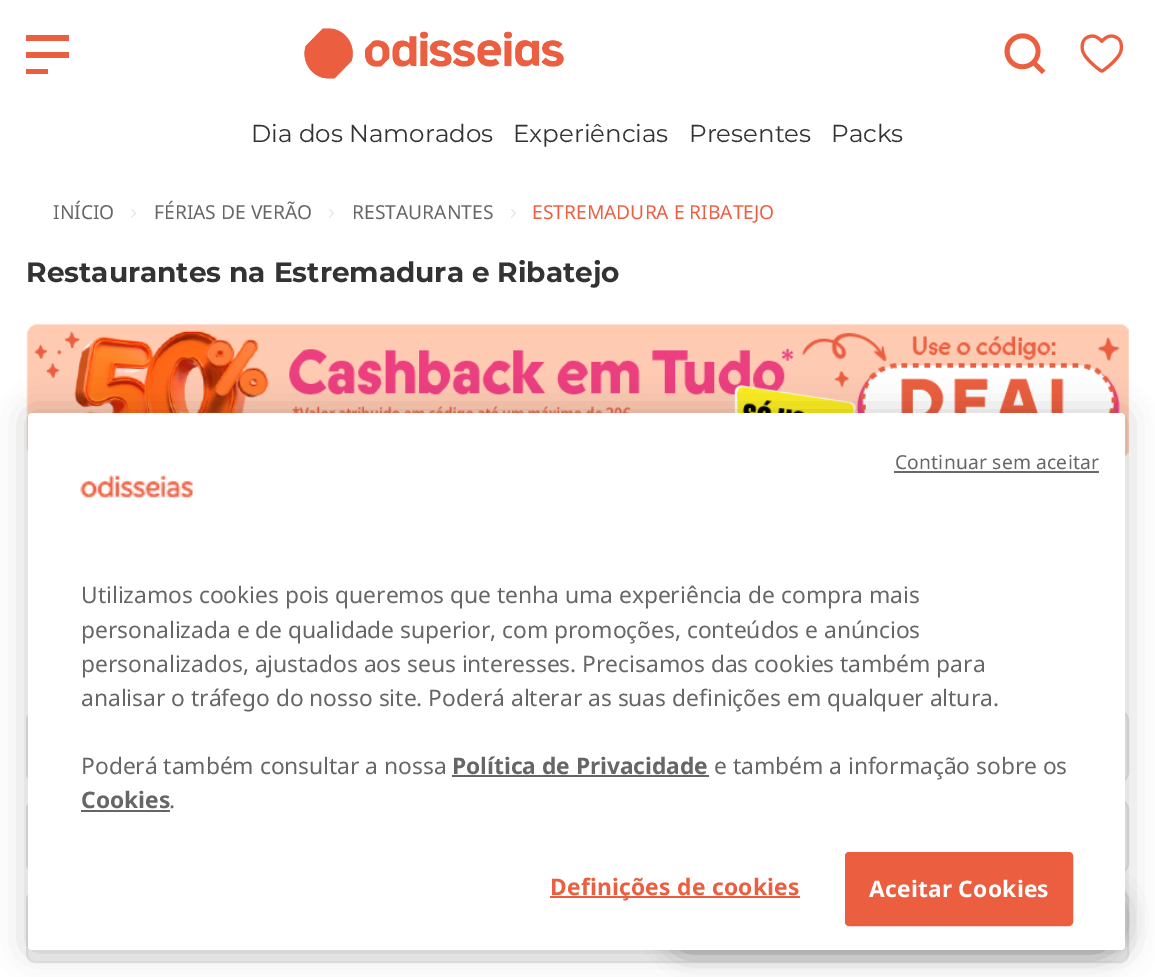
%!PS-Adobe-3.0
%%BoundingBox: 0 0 1155 977
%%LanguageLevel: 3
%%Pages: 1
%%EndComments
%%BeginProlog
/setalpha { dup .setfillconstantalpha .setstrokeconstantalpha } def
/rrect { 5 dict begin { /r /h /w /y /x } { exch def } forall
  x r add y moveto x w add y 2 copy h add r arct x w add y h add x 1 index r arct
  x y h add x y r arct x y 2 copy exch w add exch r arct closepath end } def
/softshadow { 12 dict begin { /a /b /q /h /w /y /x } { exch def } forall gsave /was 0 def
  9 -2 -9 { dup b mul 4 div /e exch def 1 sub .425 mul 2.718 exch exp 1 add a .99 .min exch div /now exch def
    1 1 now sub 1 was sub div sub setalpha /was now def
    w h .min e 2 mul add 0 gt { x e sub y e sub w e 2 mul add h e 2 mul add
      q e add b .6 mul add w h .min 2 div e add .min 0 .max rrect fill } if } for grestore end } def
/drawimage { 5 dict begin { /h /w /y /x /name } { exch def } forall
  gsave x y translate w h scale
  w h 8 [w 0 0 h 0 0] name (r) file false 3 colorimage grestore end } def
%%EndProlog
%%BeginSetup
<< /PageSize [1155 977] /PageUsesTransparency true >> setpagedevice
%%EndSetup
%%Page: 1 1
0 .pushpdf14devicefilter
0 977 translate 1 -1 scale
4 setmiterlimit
1 setgray
0 0 1155 977 rectfill
0.922 0.373 0.251 setrgbcolor
newpath 26 74 moveto 26 69 lineto 48 69 lineto 48 74 lineto closepath 26 58 moveto 26 52 lineto 69 52 lineto 69 58 lineto closepath 26 41 moveto 26 35 lineto 69 35 lineto 69 41 lineto closepath fill
(images/1.raw) 304 28 260 51 drawimage
(images/2.raw) 1004 33 42 42 drawimage
(images/3.raw) 1080 34 44 39 drawimage
(images/4.raw) 131 209 5 9 drawimage
(images/5.raw) 329 209 5 9 drawimage
(images/5.raw) 511 209 5 9 drawimage
(images/6.raw) 26 323 1103 134 drawimage
0.949 setgray
27 712 1101 69 8 rrect gsave fill grestore
0.902 setgray
2 setlinewidth
stroke
0.949 setgray
27 801 1101 71 8 rrect gsave fill grestore
0.902 setgray
stroke
0.949 setgray
27 892 1101 70 8 rrect gsave fill grestore
0.902 setgray
stroke
0 setgray
28 413 1097 537 4 16 0.2 softshadow
665 887 455 65 26 13 0.35 softshadow
1 setgray
28 413 1097 537 4 rrect fill
0.412 setgray
894 471 205 2 rectfill
(images/7.raw) 80 475 113 23 drawimage
0.388 0.396 0.412 setrgbcolor
452 775 257 2 rectfill
81 810 89 2 rectfill
0.922 0.373 0.251 setrgbcolor
550 896 250 2 rectfill
846 853 226 72 3 rrect gsave fill grestore
stroke
/Montserrat-Regular [24.5 0 0 -24.5 0 0] selectfont
0.2 setgray
251 142 moveto (Dia dos Namorados) show
513 142 moveto (Experiências) show
689 142 moveto (Presentes) show
831 142 moveto (Packs) show
/NotoSans-Regular [19.25 0 0 -19.25 0 0] selectfont
0.4 setgray
53 219 moveto (INÍCIO) show
154 219 moveto (FÉRIAS DE VERÃO) show
352 219 moveto (RESTAURANTES) show
0.922 0.373 0.251 setrgbcolor
532 219 moveto (ESTREMADURA E RIBATEJO) show
/Montserrat-Bold [28 0 0 -28 0 0] selectfont
0.2 setgray
26 282 moveto (Restaurantes na Estremadura e Ribatejo) show
/NotoSans-Regular [19.25 0 0 -19.25 0 0] selectfont
0.4 setgray
895 469 moveto 0.2 0 (Continuar sem aceitar) ashow
/NotoSans-Regular [22.75 0 0 -22.75 0 0] selectfont
81 603 moveto (Utilizamos cookies pois queremos que tenha uma experiência de compra mais) show
81 638 moveto (personalizada e de qualidade superior, com promoções, conteúdos e anúncios) show
81 672 moveto (personalizados, ajustados aos seus interesses. Precisamos das cookies também para) show
81 706 moveto (analisar o tráfego do nosso site. Poderá alterar as suas definições em qualquer altura.) show
81 774 moveto (Poderá também consultar a nossa) show
/NotoSans-Bold [22.75 0 0 -22.75 0 0] selectfont
452 774 moveto (Política de Privacidade) show
/NotoSans-Regular [22.75 0 0 -22.75 0 0] selectfont
714 774 moveto (e também a informação sobre os) show
/NotoSans-Bold [22.75 0 0 -22.75 0 0] selectfont
81 808 moveto (Cookies) show
/NotoSans-Regular [22.75 0 0 -22.75 0 0] selectfont
169 808 moveto (.) show
/NotoSans-Bold [22.75 0 0 -22.75 0 0] selectfont
0.922 0.373 0.251 setrgbcolor
550 895 moveto 0.25 0 (Definições de cookies) ashow
1 setgray
869 897 moveto 0.25 0 (Aceitar Cookies) ashow
.poppdf14devicefilter showpage
%%EOF
